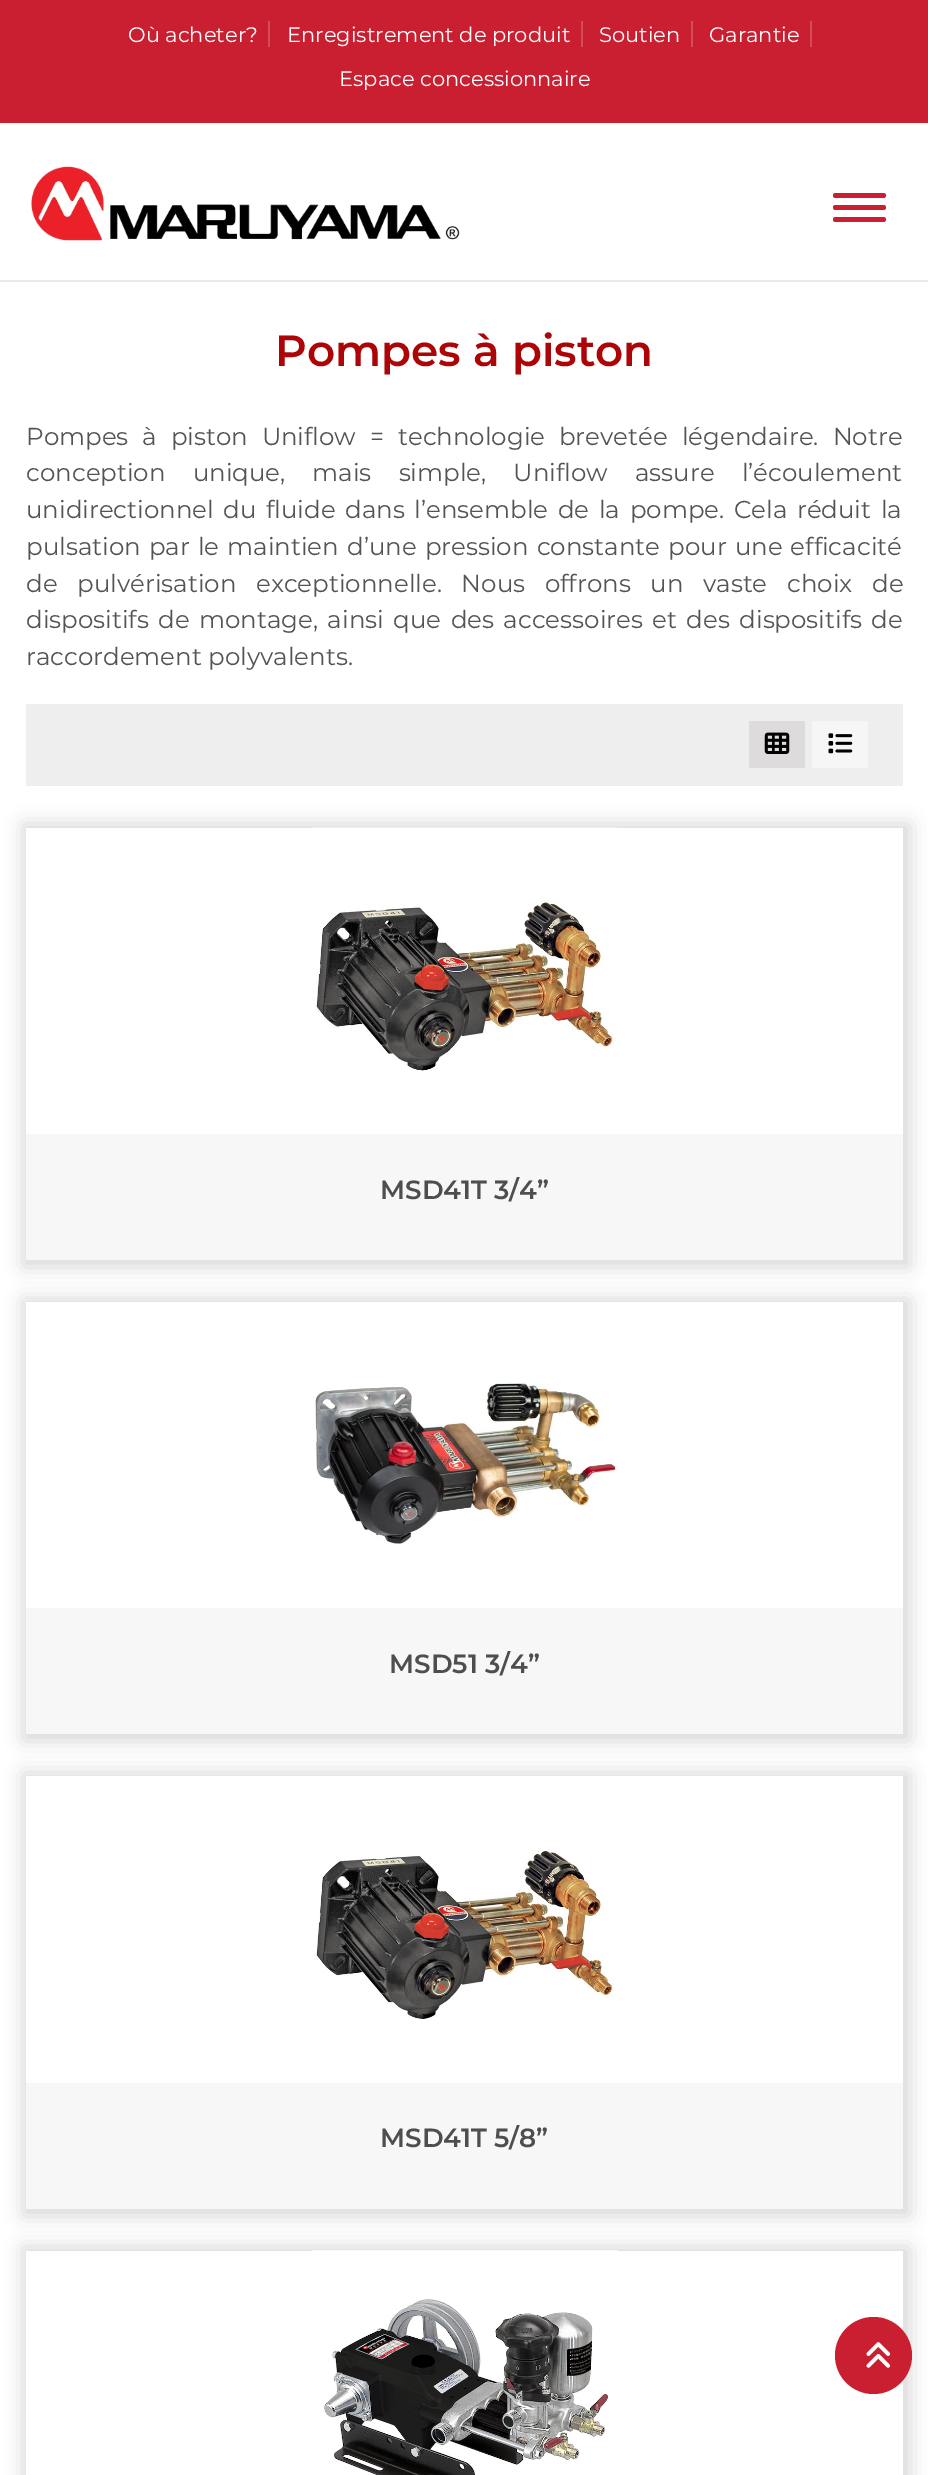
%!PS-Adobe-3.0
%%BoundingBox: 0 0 928 2475
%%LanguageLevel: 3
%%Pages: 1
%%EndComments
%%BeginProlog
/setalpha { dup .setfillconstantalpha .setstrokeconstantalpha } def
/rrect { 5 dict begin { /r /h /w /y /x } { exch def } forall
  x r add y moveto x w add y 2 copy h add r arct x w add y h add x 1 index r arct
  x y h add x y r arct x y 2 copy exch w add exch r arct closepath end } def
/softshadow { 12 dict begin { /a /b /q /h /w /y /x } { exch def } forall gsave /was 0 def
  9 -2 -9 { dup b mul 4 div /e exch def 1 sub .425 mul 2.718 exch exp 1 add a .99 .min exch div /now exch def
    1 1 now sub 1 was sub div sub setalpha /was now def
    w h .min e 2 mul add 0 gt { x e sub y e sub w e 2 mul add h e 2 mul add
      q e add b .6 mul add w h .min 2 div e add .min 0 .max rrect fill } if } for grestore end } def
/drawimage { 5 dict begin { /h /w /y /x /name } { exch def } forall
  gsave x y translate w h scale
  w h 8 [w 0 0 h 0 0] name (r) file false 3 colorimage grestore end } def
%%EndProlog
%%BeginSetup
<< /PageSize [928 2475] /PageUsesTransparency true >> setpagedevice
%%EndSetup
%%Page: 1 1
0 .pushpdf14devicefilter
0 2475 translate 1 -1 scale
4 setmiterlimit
1 setgray
0 0 928 2475 rectfill
0.788 0.122 0.192 setrgbcolor
0 0 928 123 rectfill
0.831 0.298 0.353 setrgbcolor
268 21 2 26 rectfill
581 21 2 26 rectfill
691 21 2 26 rectfill
810 21 2 26 rectfill
0.918 setgray
0 280 928 2 rectfill
(images/1.raw) 31 166 429 75 drawimage
0.792 0.122 0.196 setrgbcolor
833 193 53 5 2.5 rrect fill
833 205 53 5 2.5 rrect fill
833 217 53 5 2.5 rrect fill
0.933 setgray
26 704 877 82 rectfill
0.867 0.859 0.859 setrgbcolor
749 721 56 47 rectfill
(images/2.raw) 764 732 26 22 drawimage
0.965 setgray
812 721 56 47 rectfill
(images/3.raw) 828 733 25 21 drawimage
0.576 setgray
23 824 887 443 0 9.5 0.38 softshadow
1 setgray
26 828 877 306 rectfill
(images/4.raw) 312 827 305 244 drawimage
0.969 setgray
26 1134 877 126 rectfill
0.576 setgray
23 1299 887 442 0 9.5 0.38 softshadow
1 setgray
26 1302 877 306 rectfill
(images/5.raw) 315 1383 303 161 drawimage
0.969 setgray
26 1608 877 126 rectfill
0.576 setgray
23 1773 887 443 0 9.5 0.38 softshadow
1 setgray
26 1776 877 307 rectfill
(images/6.raw) 316 1850 298 169 drawimage
0.969 setgray
26 2083 877 126 rectfill
0.576 setgray
23 2247 887 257 0 9.5 0.38 softshadow
1 setgray
26 2251 877 224 rectfill
(images/7.raw) 312 2250 306 225 drawimage
0.788 0.122 0.192 setrgbcolor
newpath 873.5 2355.5 38.5 0 360 arc closepath fill
(images/8.raw) 866 2342 25 26 drawimage
/Montserrat-Regular [21 0 0 -21 0 0] selectfont
1 setgray
128 42 moveto (Où acheter?) show
287 42 moveto (Enregistrement de produit) show
599 42 moveto (Soutien) show
709 42 moveto (Garantie) show
339 86 moveto (Espace concessionnaire) show
/Montserrat-SemiBold [43.75 0 0 -43.75 0 0] selectfont
0.678 0.02 0.027 setrgbcolor
275 366 moveto (Pompes à piston) show
/Montserrat-Regular [24.5 0 0 -24.5 0 0] selectfont
0.329 setgray
26 445 moveto 7.5 0 32 (Pompes à piston Uniflow = technologie brevetée légendaire. Notre) widthshow
26 481 moveto 20.75 0 32 (conception unique, mais simple, Uniflow assure l’écoulement) widthshow
26 518 moveto 3.25 0 32 (unidirectionnel du fluide dans l’ensemble de la pompe. Cela réduit la) widthshow
26 555 moveto 1.75 0 32 (pulsation par le maintien d’une pression constante pour une efficacité) widthshow
26 592 moveto 13.25 0 32 (de pulvérisation exceptionnelle. Nous offrons un vaste choix de) widthshow
26 628 moveto 3.1 0 32 (dispositifs de montage, ainsi que des accessoires et des dispositifs de) widthshow
26 665 moveto (raccordement polyvalents.) show
/Montserrat-SemiBold [26.25 0 0 -26.25 0 0] selectfont
0.306 setgray
380 1199 moveto (MSD41T 3/4”) show
389 1673 moveto (MSD51 3/4”) show
380 2147 moveto (MSD41T 5/8”) show
.poppdf14devicefilter showpage
%%EOF
